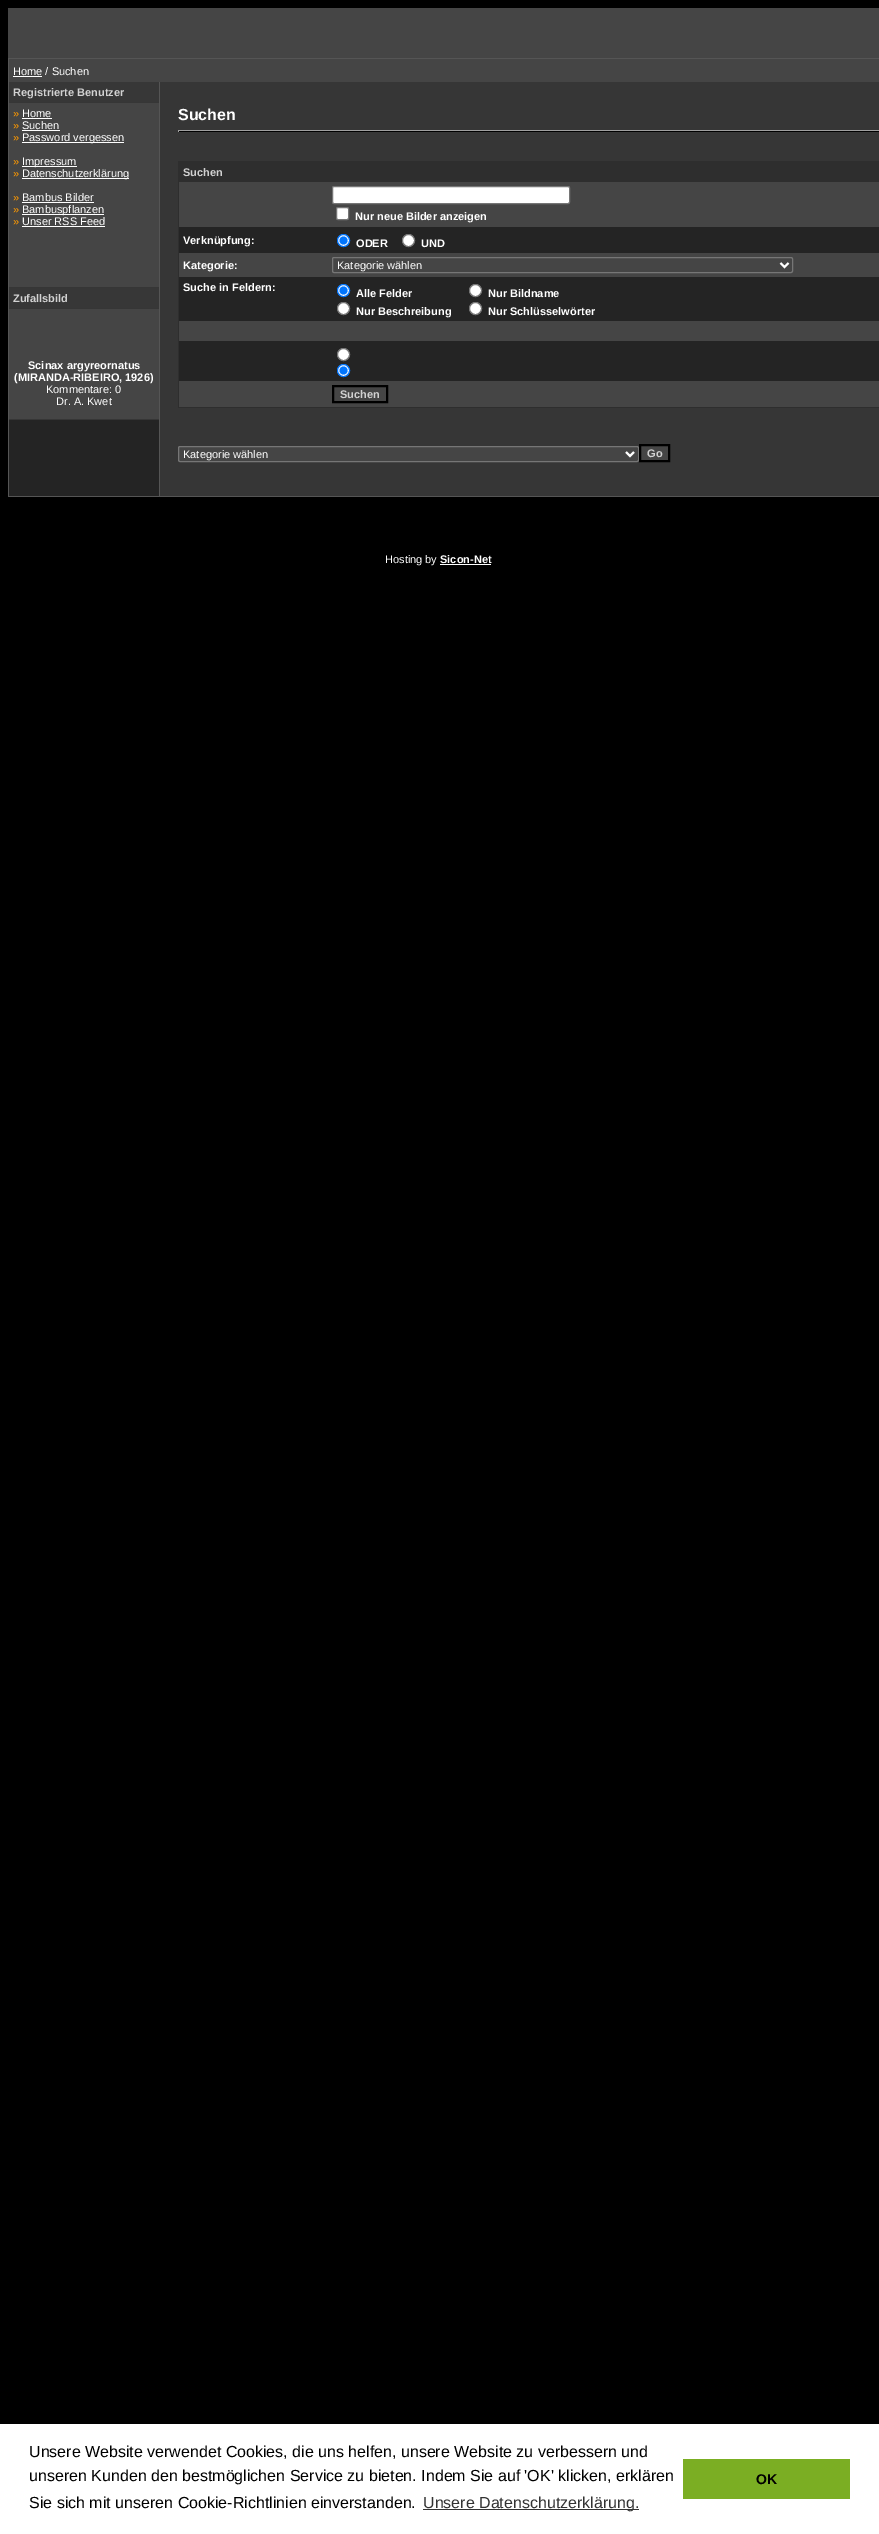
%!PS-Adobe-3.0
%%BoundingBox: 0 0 879 2534
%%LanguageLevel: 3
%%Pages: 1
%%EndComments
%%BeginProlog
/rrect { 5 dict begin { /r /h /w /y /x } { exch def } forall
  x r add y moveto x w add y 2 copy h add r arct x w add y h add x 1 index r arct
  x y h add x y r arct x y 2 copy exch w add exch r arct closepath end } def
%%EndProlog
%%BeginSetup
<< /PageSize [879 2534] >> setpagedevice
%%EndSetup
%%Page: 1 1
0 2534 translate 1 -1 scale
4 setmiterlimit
0 setgray
0 0 879 2534 rectfill
0.271 setgray
8 8 871 50 rectfill
0.333 setgray
8 58 871 439 rectfill
0.212 setgray
160 82 719 414 rectfill
0.271 setgray
9 59 870 23 rectfill
1 setgray
13 76 29 1 rectfill
0.141 setgray
9 420 150 76 rectfill
0.216 setgray
9 82 150 20 rectfill
0.212 setgray
9 102 150 1 rectfill
0.271 setgray
9 103 150 184 rectfill
1 setgray
22 118 30 1 rectfill
22 130 38 1 rectfill
22 142 102 1 rectfill
22 166 55 1 rectfill
22 178 107 1 rectfill
22 202 72 1 rectfill
22 214 82 1 rectfill
22 226 83 1 rectfill
0.212 setgray
9 287 150 1 rectfill
0.216 setgray
9 288 150 20 rectfill
0.212 setgray
9 308 150 1 rectfill
0.271 setgray
9 309 150 110 rectfill
0.212 setgray
9 419 150 1 rectfill
0 setgray
178 131 701 1 rectfill
0.624 setgray
178 130 701 1 rectfill
178 130 1 2 rectfill
0.18 setgray
178 161 701 247 rectfill
0.271 setgray
179 182 700 45 rectfill
1 setgray
332.5 186.5 237 17 1.5 rrect gsave fill grestore
0.463 setgray
stroke
1 setgray
336.5 207.5 12 12 1.5 rrect gsave fill grestore
0.463 setgray
stroke
0.141 setgray
179 227 700 26 rectfill
1 setgray
newpath 343.5 240.5 6 0 360 arc closepath gsave fill grestore
0 0.459 1 setrgbcolor
stroke
newpath 343.5 240.5 4 0 360 arc closepath fill
1 setgray
newpath 408.5 240.5 6 0 360 arc closepath gsave fill grestore
0.463 setgray
stroke
0.271 setgray
179 253 700 24 rectfill
0.463 setgray
332.5 257.5 460 15 1.5 rrect stroke
1 setgray
2 setlinewidth
newpath 780.5 263 moveto 784.5 267 lineto 788.5 263 lineto stroke
0.141 setgray
179 277 700 44 rectfill
1 setgray
newpath 343.5 290.5 6 0 360 arc closepath gsave fill grestore
0 0.459 1 setrgbcolor
1 setlinewidth
stroke
newpath 343.5 290.5 4 0 360 arc closepath fill
1 setgray
newpath 475.5 290.5 6 0 360 arc closepath gsave fill grestore
0.463 setgray
stroke
1 setgray
newpath 343.5 308.5 6 0 360 arc closepath gsave fill grestore
0.463 setgray
stroke
1 setgray
newpath 475.5 308.5 6 0 360 arc closepath gsave fill grestore
0.463 setgray
stroke
0.271 setgray
179 321 700 20 rectfill
0.141 setgray
179 341 700 40 rectfill
1 setgray
newpath 343.5 354.5 6 0 360 arc closepath gsave fill grestore
0.463 setgray
stroke
1 setgray
newpath 343.5 370.5 6 0 360 arc closepath gsave fill grestore
0 0.459 1 setrgbcolor
stroke
newpath 343.5 370.5 4 0 360 arc closepath fill
0.271 setgray
179 381 700 26 rectfill
0 setgray
2 setlinewidth
333 386 54 16 rectstroke
0.271 setgray
178.5 446.5 460 15 1.5 rrect gsave fill grestore
0.463 setgray
1 setlinewidth
stroke
1 setgray
2 setlinewidth
newpath 626 452 moveto 630 456 lineto 634 452 lineto stroke
0.271 setgray
newpath 640 445 moveto 669 445 lineto 669 461 lineto 640 461 lineto closepath gsave fill grestore
0 setgray
stroke
1 setgray
440 564 51 1 rectfill
0 2424 879 110 rectfill
0.2 setgray
423 2509 216 1 rectfill
0.482 0.682 0.137 setrgbcolor
683 2459 167 40 rectfill
/LiberationSans-Regular [11 0 0 -11 0 0] selectfont
1 setgray
13 75 moveto (Home / Suchen) show
/LiberationSans-Bold [11 0 0 -11 0 0] selectfont
0.824 setgray
13 96 moveto (Registrierte Benutzer) show
/LiberationSans-Regular [11 0 0 -11 0 0] selectfont
0.996 0.6 0 setrgbcolor
13 117 moveto (») show
1 setgray
22 117 moveto (Home) show
0.996 0.6 0 setrgbcolor
13 129 moveto (») show
1 setgray
22 129 moveto (Suchen) show
0.996 0.6 0 setrgbcolor
13 141 moveto (») show
1 setgray
22 141 moveto (Password vergessen) show
0.996 0.6 0 setrgbcolor
13 165 moveto (») show
1 setgray
22 165 moveto (Impressum) show
0.996 0.6 0 setrgbcolor
13 177 moveto (») show
1 setgray
22 177 moveto (Datenschutzerklärung) show
0.996 0.6 0 setrgbcolor
13 201 moveto (») show
1 setgray
22 201 moveto (Bambus Bilder) show
0.996 0.6 0 setrgbcolor
13 213 moveto (») show
1 setgray
22 213 moveto (Bambuspflanzen) show
0.996 0.6 0 setrgbcolor
13 225 moveto (») show
1 setgray
22 225 moveto (Unser RSS Feed) show
/LiberationSans-Bold [11 0 0 -11 0 0] selectfont
0.824 setgray
13 302 moveto (Zufallsbild) show
1 setgray
28 369 moveto (Scinax argyreornatus) show
14 381 moveto (\(MIRANDA-RIBEIRO, 1926\)) show
/LiberationSans-Regular [11 0 0 -11 0 0] selectfont
46 393 moveto (Kommentare: 0) show
56 405 moveto (Dr. A. Kwet) show
/LiberationSans-Bold [16 0 0 -16 0 0] selectfont
178 120 moveto (Suchen) show
/LiberationSans-Bold [11 0 0 -11 0 0] selectfont
0.824 setgray
183 176 moveto (Suchen) show
1 setgray
355 220 moveto (Nur neue Bilder anzeigen) show
183 244 moveto (Verknüpfung:) show
356 247 moveto (ODER) show
421 247 moveto (UND) show
183 269 moveto (Kategorie:) show
/LiberationSans-Regular [11 0 0 -11 0 0] selectfont
337 269 moveto (Kategorie wählen) show
/LiberationSans-Bold [11 0 0 -11 0 0] selectfont
183 291 moveto (Suche in Feldern:) show
356 297 moveto (Alle Felder) show
488 297 moveto (Nur Bildname) show
356 315 moveto (Nur Beschreibung) show
488 315 moveto (Nur Schlüsselwörter) show
0.824 setgray
340 398 moveto (Suchen) show
/LiberationSans-Regular [11 0 0 -11 0 0] selectfont
1 setgray
183 458 moveto (Kategorie wählen) show
/LiberationSans-Bold [11 0 0 -11 0 0] selectfont
0.824 setgray
647 457 moveto (Go) show
/LiberationSans-Regular [11 0 0 -11 0 0] selectfont
1 setgray
385 563 moveto (Hosting by) show
/LiberationSans-Bold [11 0 0 -11 0 0] selectfont
440 563 moveto (Sicon-Net) show
/LiberationSans-Regular [16 0 0 -16 0 0] selectfont
0 setgray
29 2457 moveto (Unsere Website verwendet Cookies, die uns helfen, unsere Website zu verbessern und) show
29 2481 moveto (unseren Kunden den bestmöglichen Service zu bieten. Indem Sie auf 'OK' klicken, erklären) show
29 2508 moveto (Sie sich mit unseren Cookie-Richtlinien einverstanden.) show
0.2 setgray
423 2508 moveto (Unsere Datenschutzerklärung.) show
/LiberationSans-Bold [14 0 0 -14 0 0] selectfont
0 setgray
756 2484 moveto (OK) show
showpage
%%EOF
